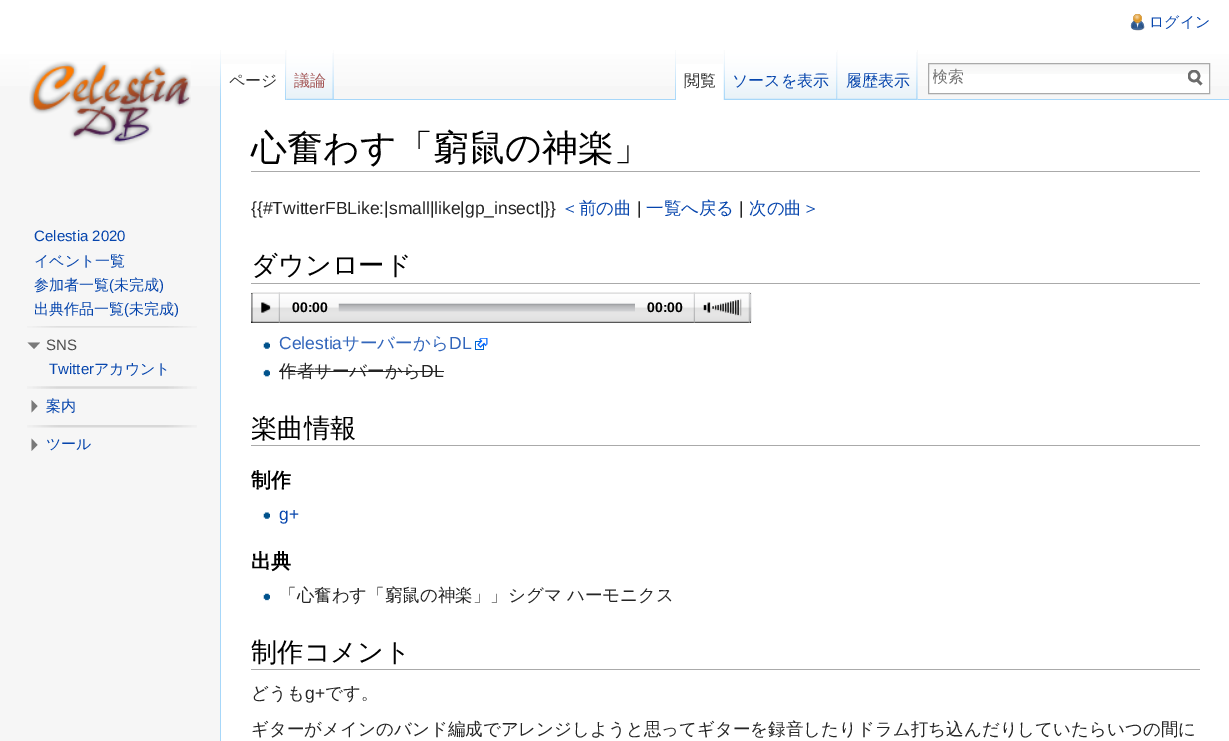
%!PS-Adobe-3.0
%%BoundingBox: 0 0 1229 741
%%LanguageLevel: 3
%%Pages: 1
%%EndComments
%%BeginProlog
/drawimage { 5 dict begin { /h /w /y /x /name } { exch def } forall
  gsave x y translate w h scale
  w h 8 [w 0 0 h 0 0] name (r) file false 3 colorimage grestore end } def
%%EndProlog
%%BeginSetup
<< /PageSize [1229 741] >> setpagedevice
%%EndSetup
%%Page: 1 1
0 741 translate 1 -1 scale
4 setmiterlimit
0.965 setgray
0 0 1229 741 rectfill
gsave newpath 0 0 moveto 1229 0 lineto 1229 86 lineto 0 86 lineto closepath clip newpath
<< /ShadingType 2 /ColorSpace /DeviceRGB /Coords [615 0 615 100] /Extend [true true] /Function << /FunctionType 3 /Domain [0 1] /Functions [<< /FunctionType 2 /Domain [0 1] /C0 [1 1 1] /C1 [1 1 1] /N 1 >> << /FunctionType 2 /Domain [0 1] /C0 [1 1 1] /C1 [0.965 0.965 0.965] /N 1 >>] /Bounds [0.5] /Encode [0 1 0 1] >> >> shfill grestore
(images/1.raw) 1130 14 15 17 drawimage
(images/2.raw) 220 50 1 49 drawimage
(images/3.raw) 333 52 1 47 drawimage
1 setgray
221 64 66 36 rectfill
(images/4.raw) 285 50 2 50 drawimage
0.655 0.843 0.976 setrgbcolor
333 99 896 1 rectfill
(images/5.raw) 286 50 48 50 drawimage
(images/6.raw) 332 53 2 47 drawimage
(images/2.raw) 675 50 1 49 drawimage
1 setgray
676 64 48 36 rectfill
(images/7.raw) 723 50 2 50 drawimage
(images/8.raw) 725 50 113 50 drawimage
(images/9.raw) 836 52 2 48 drawimage
0.953 setgray
917 50 1 50 rectfill
(images/10.raw) 837 50 81 50 drawimage
(images/9.raw) 916 52 2 48 drawimage
1 setgray
929 74 280 19 rectfill
(images/11.raw) 929 64 280 10 drawimage
0.667 setgray
928.5 63.5 281 30 rectstroke
0.424 setgray
2.5 setlinewidth
newpath 1201.5 84.5 moveto 1196.5 79.5 lineto stroke
gsave
1188 70 15 16 rectclip
newpath 1194 76 5 0 360 arc closepath stroke
grestore
(images/12.raw) 29 61 162 84 drawimage
(images/13.raw) 27 326 170 2 drawimage
0.475 setgray
newpath 40 342.5 moveto 34 349 lineto 27.5 342.5 lineto closepath fill
(images/14.raw) 27 386 170 3 drawimage
newpath 31.5 400 moveto 37.5 406 lineto 31.5 412.5 lineto closepath fill
(images/15.raw) 27 425 170 3 drawimage
newpath 31.5 438.5 moveto 37.5 445 lineto 31.5 451 lineto closepath fill
1 setgray
221 100 1008 641 rectfill
0.655 0.843 0.976 setrgbcolor
220 99 1 642 rectfill
0.667 setgray
251 171 949 1 rectfill
251 283 949 1 rectfill
0 setgray
251 293 500 30 rectfill
(images/16.raw) 251 292 2 31 drawimage
(images/17.raw) 252 292 498 31 drawimage
(images/18.raw) 750 292 2 31 drawimage
(images/19.raw) 261 302 10 11 drawimage
(images/20.raw) 278 292 2 31 drawimage
(images/21.raw) 338 303 297 9 drawimage
(images/20.raw) 693 292 2 31 drawimage
(images/22.raw) 703 302 8 11 drawimage
(images/23.raw) 712 298 30 19 drawimage
(images/24.raw) 712 299 27 17 drawimage
(images/20.raw) 748 292 2 31 drawimage
(images/25.raw) 263 342 7 7 drawimage
(images/26.raw) 475 338 13 12 drawimage
(images/27.raw) 263 369 7 8 drawimage
0.145 setgray
279 371 165 1 rectfill
0.667 setgray
251 445 949 1 rectfill
(images/25.raw) 263 512 7 7 drawimage
(images/28.raw) 263 593 7 8 drawimage
251 669 949 1 rectfill
/WenQuanYiZenHei-Medium [15 0 0 -15 0 0] selectfont
0.024 0.271 0.678 setrgbcolor
1149 27 moveto (ログイン) show
/WenQuanYiZenHei-Medium [16 0 0 -16 0 0] selectfont
0.2 setgray
229 86 moveto (ページ) show
0.647 0.345 0.345 setrgbcolor
294 86 moveto (議論) show
0.2 setgray
684 86 moveto (閲覧) show
0.024 0.271 0.678 setrgbcolor
732 86 moveto (ソースを表示) show
846 86 moveto (履歴表示) show
gsave
933 66 232 23 rectclip
0.459 setgray
932 82 moveto (検索) show
grestore
/LiberationSans-Regular [15 0 0 -15 0 0] selectfont
34 241 moveto (Celestia 2020) show
/WenQuanYiZenHei-Medium [15 0 0 -15 0 0] selectfont
34 266 moveto (イベント一覧) show
34 290 moveto (参加者一覧) show
/LiberationSans-Regular [15 0 0 -15 0 0] selectfont
109 290 moveto (\() show
/WenQuanYiZenHei-Medium [15 0 0 -15 0 0] selectfont
114 290 moveto (未完成) show
/LiberationSans-Regular [15 0 0 -15 0 0] selectfont
159 290 moveto (\)) show
/WenQuanYiZenHei-Medium [15 0 0 -15 0 0] selectfont
34 314 moveto (出典作品一覧) show
/LiberationSans-Regular [15 0 0 -15 0 0] selectfont
124 314 moveto (\() show
/WenQuanYiZenHei-Medium [15 0 0 -15 0 0] selectfont
129 314 moveto (未完成) show
/LiberationSans-Regular [15 0 0 -15 0 0] selectfont
174 314 moveto (\)) show
0.302 setgray
46 350 moveto (SNS) show
0.024 0.271 0.678 setrgbcolor
49 374 moveto (Twitter) show
/WenQuanYiZenHei-Medium [15 0 0 -15 0 0] selectfont
94 374 moveto (アカウント) show
46 411 moveto (案内) show
46 449 moveto (ツール) show
/WenQuanYiZenHei-Medium [36 0 0 -36 0 0] selectfont
0 setgray
251 160 moveto (心奮わす「窮鼠の神楽」) show
/LiberationSans-Regular [17.5 0 0 -17.5 0 0] selectfont
0.145 setgray
251 214 moveto ({{#TwitterFBLike:|small|like|gp_insect|}}) show
/WenQuanYiZenHei-Medium [17.5 0 0 -17.5 0 0] selectfont
0.024 0.271 0.678 setrgbcolor
561 214 moveto (＜前の曲) show
/LiberationSans-Regular [17.5 0 0 -17.5 0 0] selectfont
0.145 setgray
637 214 moveto (|) show
/WenQuanYiZenHei-Medium [17.5 0 0 -17.5 0 0] selectfont
0.024 0.271 0.678 setrgbcolor
646 214 moveto (一覧へ戻る) show
/LiberationSans-Regular [17.5 0 0 -17.5 0 0] selectfont
0.145 setgray
739 214 moveto (|) show
/WenQuanYiZenHei-Medium [17.5 0 0 -17.5 0 0] selectfont
0.024 0.271 0.678 setrgbcolor
749 214 moveto (次の曲＞) show
/WenQuanYiZenHei-Medium [26.25 0 0 -26.25 0 0] selectfont
0 setgray
251 274 moveto (ダウンロード) show
/LiberationSans-Bold [14 0 0 -14 0 0] selectfont
292 312 moveto (00:00) show
647 312 moveto (00:00) show
/LiberationSans-Regular [17.5 0 0 -17.5 0 0] selectfont
0.2 0.4 0.733 setrgbcolor
279 349 moveto (Celestia) show
/WenQuanYiZenHei-Medium [17.5 0 0 -17.5 0 0] selectfont
342 349 moveto (サーバーから) show
/LiberationSans-Regular [17.5 0 0 -17.5 0 0] selectfont
449 349 moveto (DL) show
/WenQuanYiZenHei-Medium [17.5 0 0 -17.5 0 0] selectfont
0.145 setgray
279 377 moveto (作者サーバーから) show
/LiberationSans-Regular [17.5 0 0 -17.5 0 0] selectfont
421 377 moveto (DL) show
/WenQuanYiZenHei-Medium [26.25 0 0 -26.25 0 0] selectfont
0 setgray
251 437 moveto (楽曲情報) show
/WenQuanYiZenHei-Bold [20 0 0 -20 0 0] selectfont
251 487 moveto (制作) show
/LiberationSans-Regular [17.5 0 0 -17.5 0 0] selectfont
0.024 0.271 0.678 setrgbcolor
279 520 moveto (g+) show
/WenQuanYiZenHei-Bold [20 0 0 -20 0 0] selectfont
0 setgray
251 568 moveto (出典) show
/WenQuanYiZenHei-Medium [17.5 0 0 -17.5 0 0] selectfont
0.145 setgray
279 601 moveto (「心奮わす「窮鼠の神楽」」シグマ ハーモニクス) show
/WenQuanYiZenHei-Medium [26.25 0 0 -26.25 0 0] selectfont
0 setgray
251 661 moveto (制作コメント) show
/WenQuanYiZenHei-Medium [17.5 0 0 -17.5 0 0] selectfont
0.145 setgray
251 699 moveto (どうも) show
/LiberationSans-Regular [17.5 0 0 -17.5 0 0] selectfont
305 699 moveto (g+) show
/WenQuanYiZenHei-Medium [17.5 0 0 -17.5 0 0] selectfont
325 699 moveto (です。) show
251 735 moveto (ギターがメインのバンド編成でアレンジしようと思ってギターを録音したりドラム打ち込んだりしていたらいつの間に) show
showpage
%%EOF
